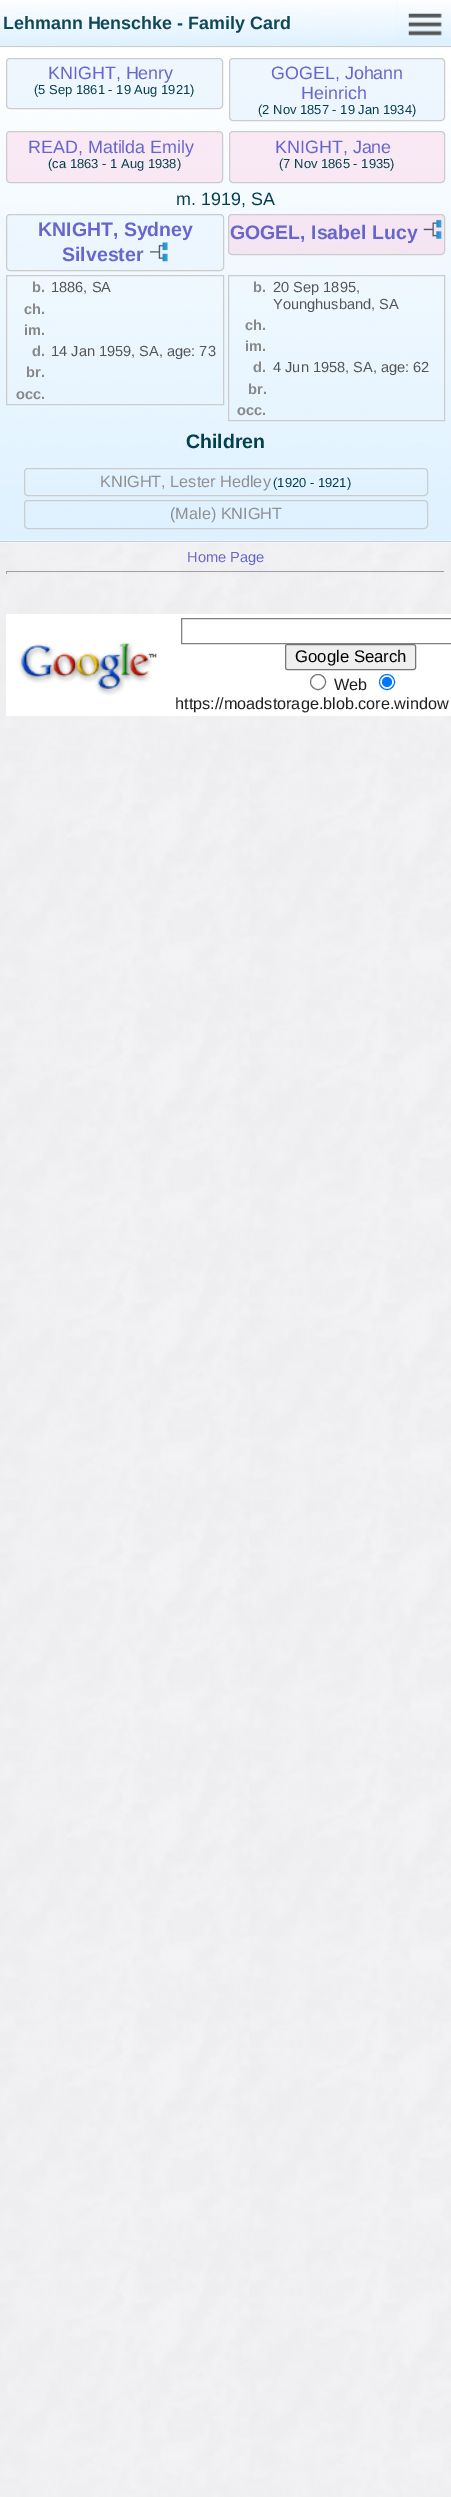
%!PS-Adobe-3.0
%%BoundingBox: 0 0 451 2497
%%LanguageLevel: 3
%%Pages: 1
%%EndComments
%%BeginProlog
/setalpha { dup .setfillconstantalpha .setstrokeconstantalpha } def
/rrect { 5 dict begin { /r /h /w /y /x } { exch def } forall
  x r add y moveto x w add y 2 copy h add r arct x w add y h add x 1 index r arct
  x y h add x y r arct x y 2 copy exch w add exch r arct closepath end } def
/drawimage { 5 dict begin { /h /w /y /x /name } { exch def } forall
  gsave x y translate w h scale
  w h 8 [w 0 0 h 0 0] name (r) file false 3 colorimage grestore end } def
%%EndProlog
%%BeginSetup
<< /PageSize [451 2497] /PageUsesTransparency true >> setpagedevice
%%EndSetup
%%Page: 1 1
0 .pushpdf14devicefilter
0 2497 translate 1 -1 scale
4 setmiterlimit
1 setgray
0 0 451 2497 rectfill
(images/1.raw) 0 0 451 2497 drawimage
0.95 setalpha
0.871 0.945 1 setrgbcolor
0 0 451 46 rectfill
1 setalpha
0 47 451 496 rectfill
(images/5.raw) 0 47 451 496 drawimage
(images/2.raw) 0 0 451 48 drawimage
0.8 setgray
0 46 451 1 rectfill
0.95 setalpha
0.871 0.945 1 setrgbcolor
396 0 55 43 rectfill
1 setalpha
(images/3.raw) 396 0 55 38 drawimage
(images/4.raw) 408 13 34 23 drawimage
0.8 setgray
0 541 451 1 rectfill
0.51 setalpha
0.878 0.937 0.996 setrgbcolor
6.5 58.5 216 50 3.5 rrect fill
1 setalpha
0.8 setgray
6.5 58.5 216 50 3.5 rrect stroke
0.51 setalpha
0.878 0.937 0.996 setrgbcolor
229.5 58.5 215 62 3.5 rrect fill
1 setalpha
0.8 setgray
229.5 58.5 215 62 3.5 rrect stroke
0.28 setalpha
0.988 0.718 0.839 setrgbcolor
6.5 131.5 216 51 3.5 rrect fill
1 setalpha
0.8 setgray
6.5 131.5 216 51 3.5 rrect stroke
0.28 setalpha
0.988 0.718 0.839 setrgbcolor
229.5 131.5 215 51 3.5 rrect fill
1 setalpha
0.8 setgray
229.5 131.5 215 51 3.5 rrect stroke
0.3 setalpha
0.878 0.937 0.996 setrgbcolor
6.5 214.5 217 56 3.5 rrect fill
1 setalpha
0.8 setgray
6.5 214.5 217 56 3.5 rrect stroke
(images/6.raw) 149 242 19 20 drawimage
0.3 setalpha
0.988 0.718 0.839 setrgbcolor
228.5 214.5 216 40 3.5 rrect fill
1 setalpha
0.8 setgray
228.5 214.5 216 40 3.5 rrect stroke
(images/7.raw) 423 219 19 20 drawimage
6.5 275.5 217 129 rectstroke
228.5 275.5 216 145 rectstroke
24.5 468.5 403 27 3.5 rrect stroke
24.5 500.5 403 28 3.5 rrect stroke
0.624 setgray
6 571 439 1 rectfill
0.933 setgray
444 571 1 3 rectfill
6 573 439 1 rectfill
0.624 setgray
6 571 1 3 rectfill
1 setgray
6 614 445 102 rectfill
(images/8.raw) 18 642 139 54 drawimage
0.502 setgray
181.5 618.5 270 25 rectstroke
0.937 setgray
285.5 644.5 130 25 2 rrect gsave fill grestore
0.463 setgray
stroke
newpath 318 682 7.5 0 360 arc closepath stroke
0 0.459 1 setrgbcolor
newpath 387 682 7.5 0 360 arc closepath stroke
newpath 387 682 5 0 360 arc closepath fill
/LiberationSans-Bold [17.9 0 0 -17.9 0 0] selectfont
0.063 0.282 0.341 setrgbcolor
3 29 moveto (Lehmann Henschke - Family Card) show
/LiberationSans-Regular [17.9 0 0 -17.9 0 0] selectfont
0.4 0.4 0.8 setrgbcolor
48 79 moveto (KNIGHT, Henry) show
/LiberationSans-Regular [13 0 0 -13 0 0] selectfont
0.016 0.247 0.306 setrgbcolor
34 94 moveto (\(5 Sep 1861 - 19 Aug 1921\)) show
/LiberationSans-Regular [17.9 0 0 -17.9 0 0] selectfont
0.4 0.4 0.8 setrgbcolor
271 79 moveto (GOGEL, Johann) show
301 99 moveto (Heinrich) show
/LiberationSans-Regular [13 0 0 -13 0 0] selectfont
0.016 0.247 0.306 setrgbcolor
258 114 moveto (\(2 Nov 1857 - 19 Jan 1934\)) show
/LiberationSans-Regular [17.9 0 0 -17.9 0 0] selectfont
0.4 0.4 0.8 setrgbcolor
28 153 moveto (READ, Matilda Emily) show
/LiberationSans-Regular [13 0 0 -13 0 0] selectfont
0.016 0.247 0.306 setrgbcolor
48 168 moveto (\(ca 1863 - 1 Aug 1938\)) show
/LiberationSans-Regular [17.9 0 0 -17.9 0 0] selectfont
0.4 0.4 0.8 setrgbcolor
275 153 moveto (KNIGHT, Jane) show
/LiberationSans-Regular [13 0 0 -13 0 0] selectfont
0.016 0.247 0.306 setrgbcolor
279 168 moveto (\(7 Nov 1865 - 1935\)) show
/LiberationSans-Regular [17.9 0 0 -17.9 0 0] selectfont
176 205 moveto (m. 1919, SA) show
/LiberationSans-Bold [19.5 0 0 -19.5 0 0] selectfont
0.4 0.4 0.8 setrgbcolor
38 236 moveto (KNIGHT, Sydney) show
62 261 moveto (Silvester) show
230 239 moveto (GOGEL, Isabel Lucy) show
/LiberationSans-Bold [14.6 0 0 -14.6 0 0] selectfont
0.533 setgray
32 292 moveto (b.) show
/LiberationSans-Regular [14.6 0 0 -14.6 0 0] selectfont
0.333 setgray
51 292 moveto (1886, SA) show
/LiberationSans-Bold [14.6 0 0 -14.6 0 0] selectfont
0.533 setgray
24 314 moveto (ch.) show
24 335 moveto (im.) show
32 356 moveto (d.) show
/LiberationSans-Regular [14.6 0 0 -14.6 0 0] selectfont
0.333 setgray
51 356 moveto (14 Jan 1959, SA, age: 73) show
/LiberationSans-Bold [14.6 0 0 -14.6 0 0] selectfont
0.533 setgray
26 377 moveto (br.) show
16 399 moveto (occ.) show
253 292 moveto (b.) show
/LiberationSans-Regular [14.6 0 0 -14.6 0 0] selectfont
0.333 setgray
273 292 moveto (20 Sep 1895,) show
273 309 moveto (Younghusband, SA) show
/LiberationSans-Bold [14.6 0 0 -14.6 0 0] selectfont
0.533 setgray
245 330 moveto (ch.) show
245 351 moveto (im.) show
253 372 moveto (d.) show
/LiberationSans-Regular [14.6 0 0 -14.6 0 0] selectfont
0.333 setgray
273 372 moveto (4 Jun 1958, SA, age: 62) show
/LiberationSans-Bold [14.6 0 0 -14.6 0 0] selectfont
0.533 setgray
248 394 moveto (br.) show
237 415 moveto (occ.) show
/LiberationSans-Bold [19.5 0 0 -19.5 0 0] selectfont
0.016 0.247 0.306 setrgbcolor
186 448 moveto (Children) show
/LiberationSans-Regular [16.25 0 0 -16.25 0 0] selectfont
0.565 setgray
100 487 moveto (KNIGHT, Lester Hedley) show
/LiberationSans-Regular [13 0 0 -13 0 0] selectfont
0.016 0.247 0.306 setrgbcolor
273 487 moveto (\(1920 - 1921\)) show
/LiberationSans-Regular [16.25 0 0 -16.25 0 0] selectfont
0.565 setgray
170 519 moveto (\(Male\) KNIGHT) show
/LiberationSans-Regular [14.6 0 0 -14.6 0 0] selectfont
0.4 0.4 0.8 setrgbcolor
187 562 moveto (Home Page) show
/LiberationSans-Regular [16.75 0 0 -16.75 0 0] selectfont
0 setgray
295 662 moveto (Google Search) show
/LiberationSans-Regular [16.25 0 0 -16.25 0 0] selectfont
0.125 setgray
334 690 moveto (Web) show
175 709 moveto (https://moadstorage.blob.core.window) show
.poppdf14devicefilter showpage
%%EOF
